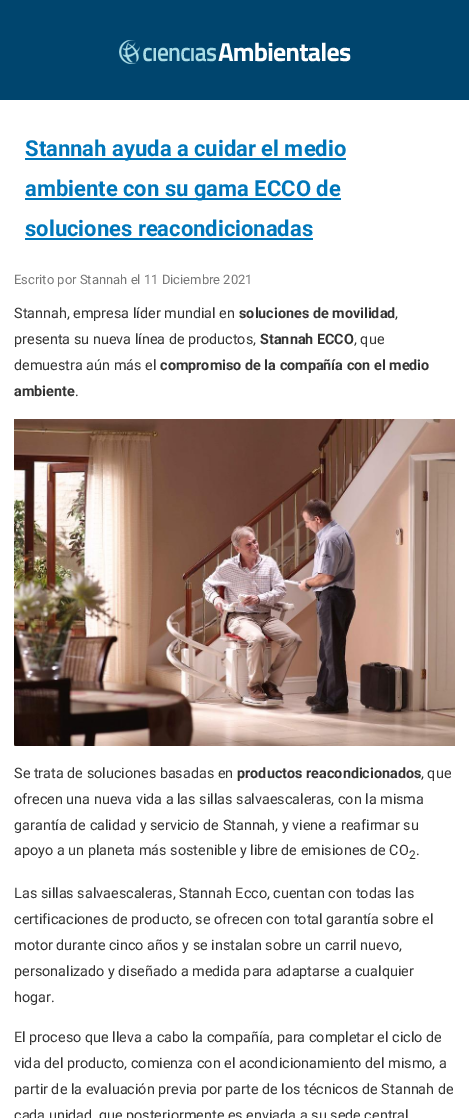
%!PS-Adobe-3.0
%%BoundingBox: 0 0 469 1118
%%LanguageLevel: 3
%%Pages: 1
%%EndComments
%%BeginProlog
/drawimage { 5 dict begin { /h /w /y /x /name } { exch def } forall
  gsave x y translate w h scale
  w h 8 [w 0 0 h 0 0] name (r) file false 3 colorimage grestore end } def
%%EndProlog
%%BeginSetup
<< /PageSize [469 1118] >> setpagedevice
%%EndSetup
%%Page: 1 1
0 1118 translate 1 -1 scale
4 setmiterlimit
0 0.271 0.431 setrgbcolor
0 0 469 1118 rectfill
(images/1.raw) 119 40 232 24 drawimage
1 setgray
0 100 469 1018 rectfill
0 0.467 0.733 setrgbcolor
25 158 321 2 rectfill
25 198 316 2 rectfill
25 238 288 2 rectfill
(images/2.raw) 14 419 441 327 drawimage
/Roboto-Bold [22 0 0 -22 0 0] selectfont
25 156 moveto (Stannah ayuda a cuidar el medio) show
25 196 moveto (ambiente con su gama ECCO de) show
25 236 moveto (soluciones reacondicionadas) show
/Roboto-Regular [13 0 0 -13 0 0] selectfont
0.467 setgray
14 284 moveto (Escrito por Stannah el 11 Diciembre 2021) show
/Roboto-Regular [14.4 0 0 -14.4 0 0] selectfont
0.2 setgray
14 318 moveto (Stannah, empresa líder mundial en) show
/Roboto-Bold [14.4 0 0 -14.4 0 0] selectfont
239 318 moveto (soluciones de movilidad) show
/Roboto-Regular [14.4 0 0 -14.4 0 0] selectfont
395 318 moveto (,) show
14 344 moveto (presenta su nueva línea de productos,) show
/Roboto-Bold [14.4 0 0 -14.4 0 0] selectfont
260 344 moveto (Stannah ECCO) show
/Roboto-Regular [14.4 0 0 -14.4 0 0] selectfont
354 344 moveto (, que) show
14 370 moveto (demuestra aún más el) show
/Roboto-Bold [14.4 0 0 -14.4 0 0] selectfont
160 370 moveto (compromiso de la compañía con el medio) show
14 396 moveto (ambiente) show
/Roboto-Regular [14.4 0 0 -14.4 0 0] selectfont
75 396 moveto (.) show
14 778 moveto (Se trata de soluciones basadas en) show
/Roboto-Bold [14.4 0 0 -14.4 0 0] selectfont
237 778 moveto (productos reacondicionados) show
/Roboto-Regular [14.4 0 0 -14.4 0 0] selectfont
421 778 moveto (, que) show
14 804 moveto (ofrecen una nueva vida a las sillas salvaescaleras, con la misma) show
14 830 moveto (garantía de calidad y servicio de Stannah, y viene a reafirmar su) show
14 855 moveto (apoyo a un planeta más sostenible y libre de emisiones de CO) show
/Roboto-Regular [12 0 0 -12 0 0] selectfont
409 859 moveto (2) show
/Roboto-Regular [14.4 0 0 -14.4 0 0] selectfont
416 855 moveto (.) show
14 898 moveto (Las sillas salvaescaleras, Stannah Ecco, cuentan con todas las) show
14 924 moveto (certificaciones de producto, se ofrecen con total garantía sobre el) show
14 950 moveto (motor durante cinco años y se instalan sobre un carril nuevo,) show
14 976 moveto (personalizado y diseñado a medida para adaptarse a cualquier) show
14 1002 moveto (hogar.) show
14 1042 moveto (El proceso que lleva a cabo la compañía, para completar el ciclo de) show
14 1068 moveto (vida del producto, comienza con el acondicionamiento del mismo, a) show
14 1094 moveto (partir de la evaluación previa por parte de los técnicos de Stannah de) show
14 1120 moveto (cada unidad, que posteriormente es enviada a su sede central) show
showpage
%%EOF
